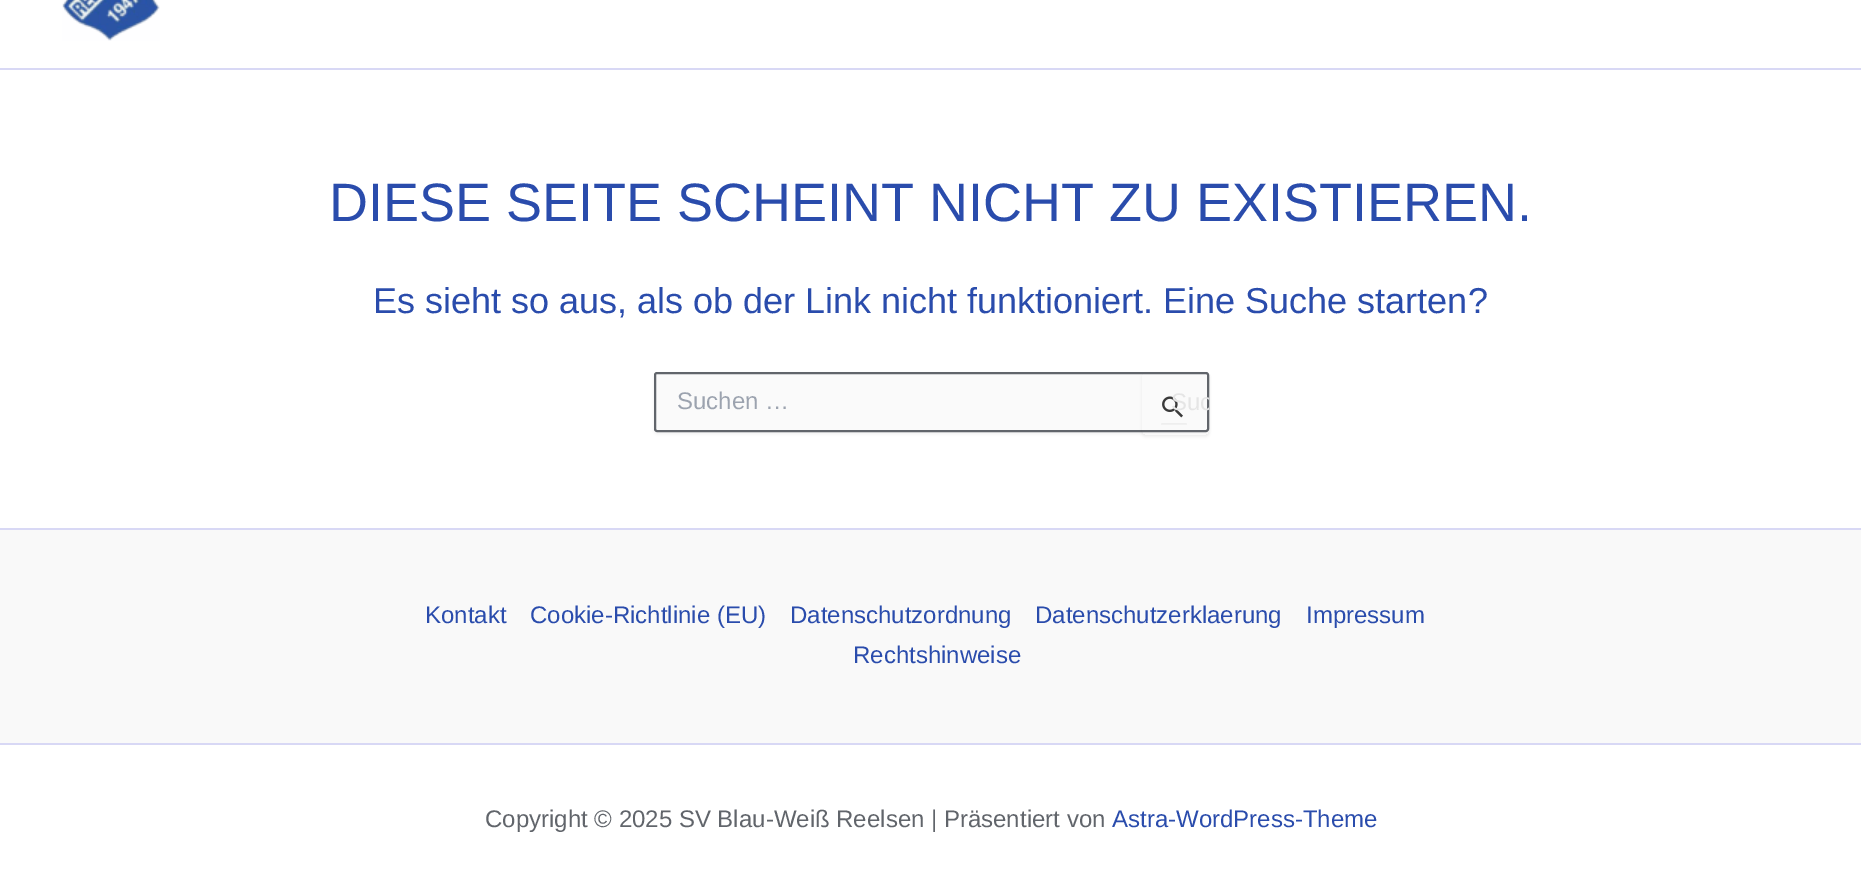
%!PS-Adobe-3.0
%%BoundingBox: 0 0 1861 893
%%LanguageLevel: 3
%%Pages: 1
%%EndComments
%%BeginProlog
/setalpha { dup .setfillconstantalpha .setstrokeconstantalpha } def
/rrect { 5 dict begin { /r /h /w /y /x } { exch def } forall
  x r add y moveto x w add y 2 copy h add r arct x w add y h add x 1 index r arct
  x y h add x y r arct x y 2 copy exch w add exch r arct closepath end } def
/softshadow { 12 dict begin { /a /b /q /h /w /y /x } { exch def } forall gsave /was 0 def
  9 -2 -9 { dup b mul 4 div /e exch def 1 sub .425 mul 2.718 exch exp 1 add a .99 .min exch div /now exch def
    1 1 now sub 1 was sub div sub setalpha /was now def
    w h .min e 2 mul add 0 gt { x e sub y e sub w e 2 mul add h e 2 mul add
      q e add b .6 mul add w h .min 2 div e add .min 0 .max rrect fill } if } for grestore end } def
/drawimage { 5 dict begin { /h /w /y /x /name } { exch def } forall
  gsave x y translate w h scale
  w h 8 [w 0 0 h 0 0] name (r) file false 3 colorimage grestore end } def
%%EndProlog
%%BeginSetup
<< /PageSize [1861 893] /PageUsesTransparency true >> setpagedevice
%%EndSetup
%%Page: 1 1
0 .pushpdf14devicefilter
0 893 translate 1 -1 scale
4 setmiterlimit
1 setgray
0 0 1861 893 rectfill
0.847 0.847 0.961 setrgbcolor
0 68 1861 2 rectfill
(images/1.raw) 62 0 98 41 drawimage
0 setgray
654 374 555 60 3 1.5 0.05 softshadow
0.98 setgray
655 373 553 58 2 rrect gsave fill grestore
0.38 0.396 0.42 setrgbcolor
2 setlinewidth
stroke
gsave
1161 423 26 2 rectclip
0 setgray
1161 392 26 33 0 1.5 0.05 softshadow
grestore
(images/2.raw) 1162 396 21 22 drawimage
gsave
newpath 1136 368 moveto 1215 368 lineto 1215 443 lineto 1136 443 lineto closepath 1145 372 moveto 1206 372 lineto 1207.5 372 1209 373.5 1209 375 curveto 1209 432 lineto 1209 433.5 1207.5 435 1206 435 curveto 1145 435 lineto 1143.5 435 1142 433.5 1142 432 curveto 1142 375 lineto 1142 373.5 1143.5 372 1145 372 curveto closepath eoclip newpath
0 setgray
1142 374 67 63 3 1.5 0.05 softshadow
grestore
0.976 setgray
0 530 1861 213 rectfill
0.847 0.847 0.961 setrgbcolor
0 528 1861 2 rectfill
0 743 1861 2 rectfill
/LiberationSans-Regular [54 0 0 -54 0 0] selectfont
0.165 0.298 0.675 setrgbcolor
329 221 moveto (DIESE SEITE SCHEINT NICHT ZU EXISTIEREN.) show
/LiberationSans-Regular [36 0 0 -36 0 0] selectfont
373 313 moveto (Es sieht so aus, als ob der Link nicht funktioniert. Eine Suche starten?) show
/LiberationSans-Regular [24 0 0 -24 0 0] selectfont
0.612 0.639 0.686 setrgbcolor
677 409 moveto (Suchen …) show
gsave
1142 372 67 63 3 rrect clip newpath
0.898 setgray
1171 410 moveto (Suc) show
grestore
0.165 0.298 0.675 setrgbcolor
425 623 moveto (Kontakt) show
530 623 moveto (Cookie-Richtlinie \(EU\)) show
790 623 moveto (Datenschutzordnung) show
1035 623 moveto (Datenschutzerklaerung) show
1306 623 moveto (Impressum) show
853 663 moveto (Rechtshinweise) show
0.38 0.396 0.42 setrgbcolor
485 827 moveto (Copyright © 2025 SV Blau-Weiß Reelsen | Präsentiert von) show
0.165 0.298 0.675 setrgbcolor
1112 827 moveto (Astra-WordPress-Theme) show
.poppdf14devicefilter showpage
%%EOF
